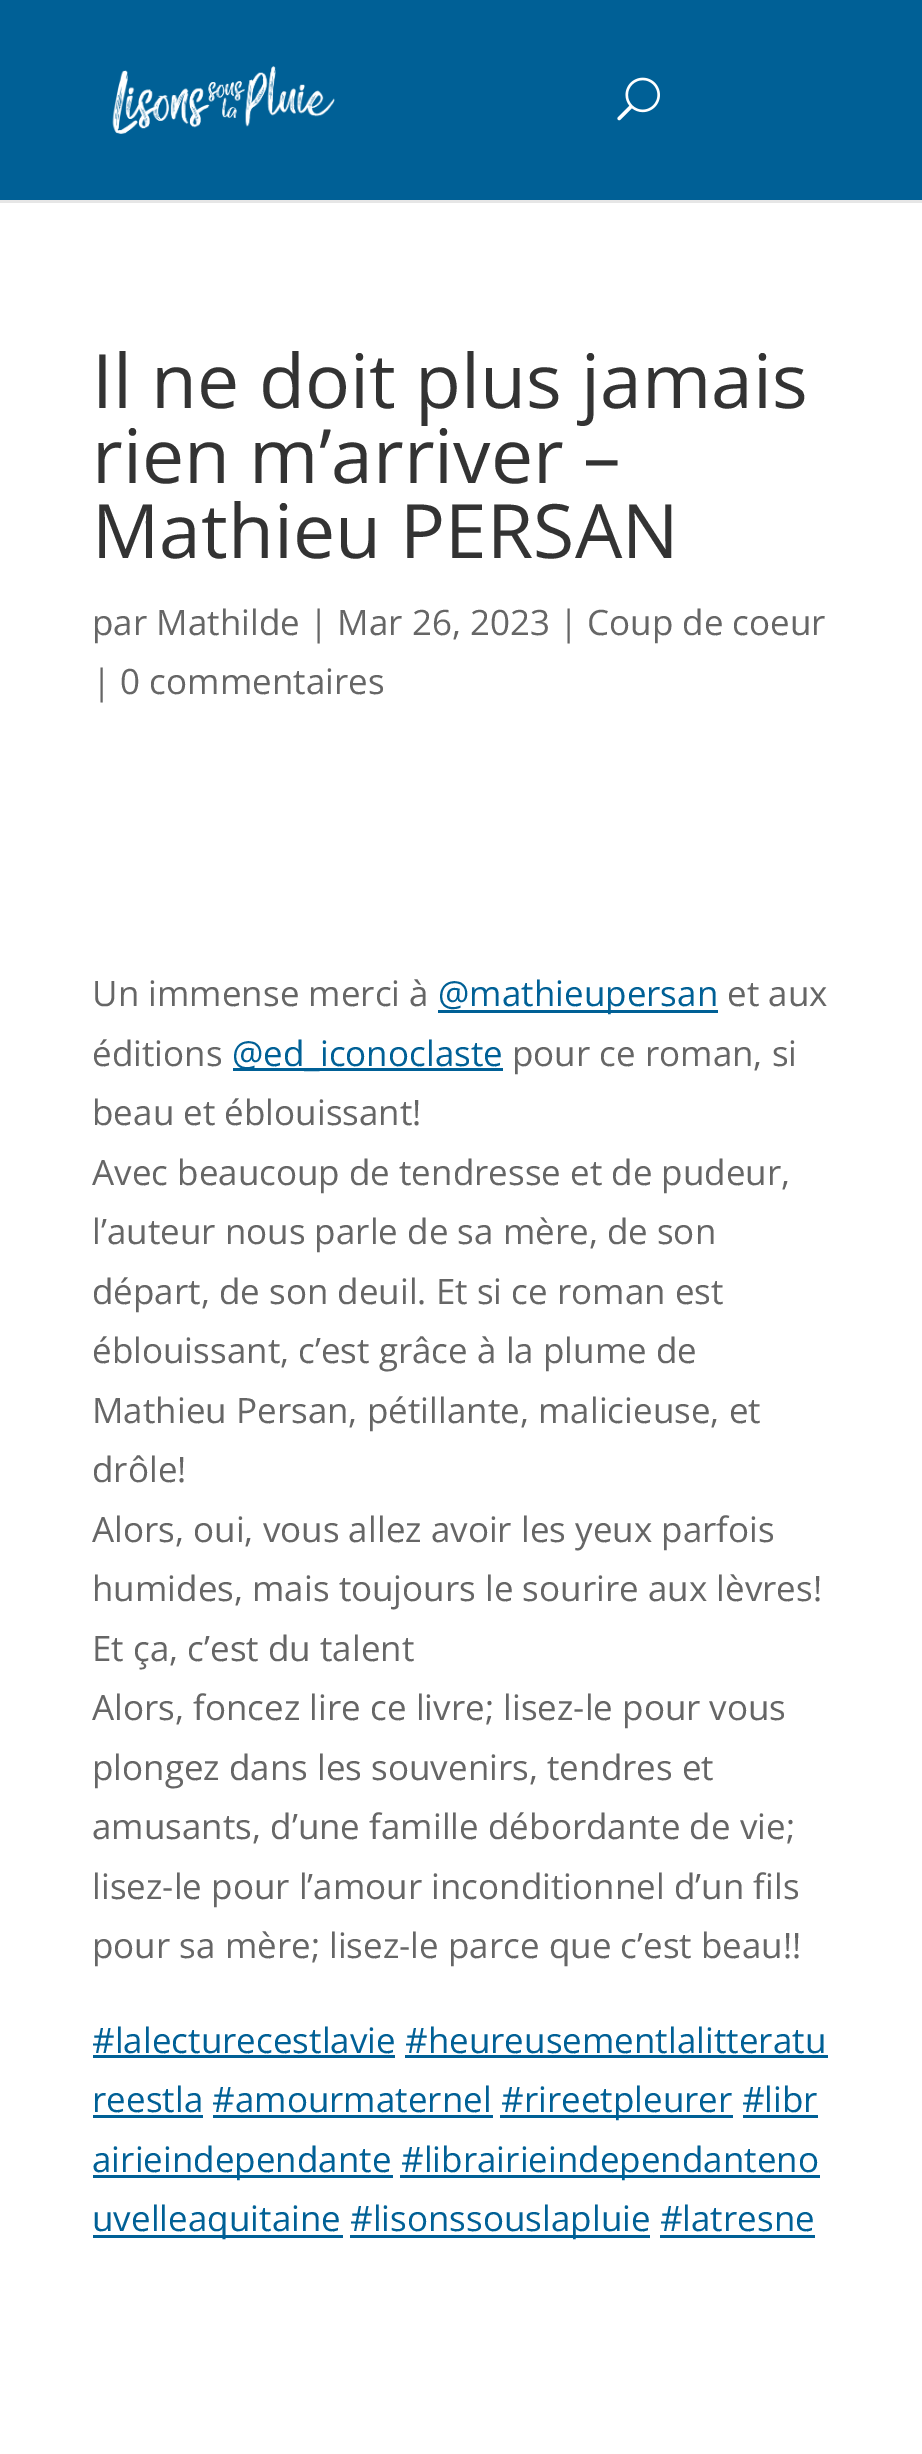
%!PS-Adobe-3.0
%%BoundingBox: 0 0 922 2454
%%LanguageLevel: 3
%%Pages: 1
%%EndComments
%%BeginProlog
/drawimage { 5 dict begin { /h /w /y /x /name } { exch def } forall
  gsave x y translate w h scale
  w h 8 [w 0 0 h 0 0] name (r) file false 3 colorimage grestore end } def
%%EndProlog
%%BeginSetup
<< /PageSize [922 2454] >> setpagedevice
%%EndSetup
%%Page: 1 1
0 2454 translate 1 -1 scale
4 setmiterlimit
1 setgray
0 0 922 2454 rectfill
0.902 setgray
newpath 0 200 moveto 0 203 lineto 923 203 lineto 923 3 lineto 922 3 lineto 922 200 lineto closepath fill
0 0.376 0.588 setrgbcolor
0 0 922 200 rectfill
(images/1.raw) 112 66 223 68 drawimage
(images/2.raw) 617 77 43 44 drawimage
438 1010 280 3 rectfill
233 1068 270 3 rectfill
93 2055 302 3 rectfill
405 2055 423 3 rectfill
93 2115 110 3 rectfill
213 2115 280 3 rectfill
500 2115 233 3 rectfill
743 2115 75 3 rectfill
93 2175 300 3 rectfill
400 2175 420 3 rectfill
93 2235 250 3 rectfill
350 2235 300 3 rectfill
660 2235 155 3 rectfill
/OpenSans-Regular [75 0 0 -75 0 0] selectfont
0.2 setgray
92 408 moveto (Il ne doit plus jamais) show
92 483 moveto (rien m’arriver –) show
92 558 moveto (Mathieu PERSAN) show
/OpenSans-Regular [35 0 0 -35 0 0] selectfont
0.4 setgray
92 635 moveto (par Mathilde | Mar 26, 2023 | Coup de coeur) show
92 694 moveto (| 0 commentaires) show
92 1006 moveto (Un immense merci à) show
0 0.376 0.588 setrgbcolor
438 1006 moveto (@mathieupersan) show
0.4 setgray
727 1006 moveto (et aux) show
92 1066 moveto (éditions) show
0 0.376 0.588 setrgbcolor
232 1066 moveto (@ed_iconoclaste) show
0.4 setgray
512 1066 moveto (pour ce roman, si) show
92 1125 moveto (beau et éblouissant!) show
92 1185 moveto (Avec beaucoup de tendresse et de pudeur,) show
92 1244 moveto (l’auteur nous parle de sa mère, de son) show
92 1304 moveto (départ, de son deuil. Et si ce roman est) show
92 1363 moveto (éblouissant, c’est grâce à la plume de) show
92 1423 moveto (Mathieu Persan, pétillante, malicieuse, et) show
92 1482 moveto (drôle!) show
92 1542 moveto (Alors, oui, vous allez avoir les yeux parfois) show
92 1601 moveto (humides, mais toujours le sourire aux lèvres!) show
92 1661 moveto (Et ça, c’est du talent) show
92 1720 moveto (Alors, foncez lire ce livre; lisez-le pour vous) show
92 1780 moveto (plongez dans les souvenirs, tendres et) show
92 1839 moveto (amusants, d’une famille débordante de vie;) show
92 1899 moveto (lisez-le pour l’amour inconditionnel d’un fils) show
92 1958 moveto (pour sa mère; lisez-le parce que c’est beau!!) show
0 0.376 0.588 setrgbcolor
92 2053 moveto (#lalecturecestlavie #heureusementlalitteratu) show
92 2112 moveto (reestla #amourmaternel) show
501 2112 moveto (#rireetpleurer #libr) show
92 2172 moveto (airieindependante) show
401 2172 moveto (#librairieindependanteno) show
92 2231 moveto (uvelleaquitaine) show
350 2231 moveto (#lisonssouslapluie #latresne) show
showpage
%%EOF
